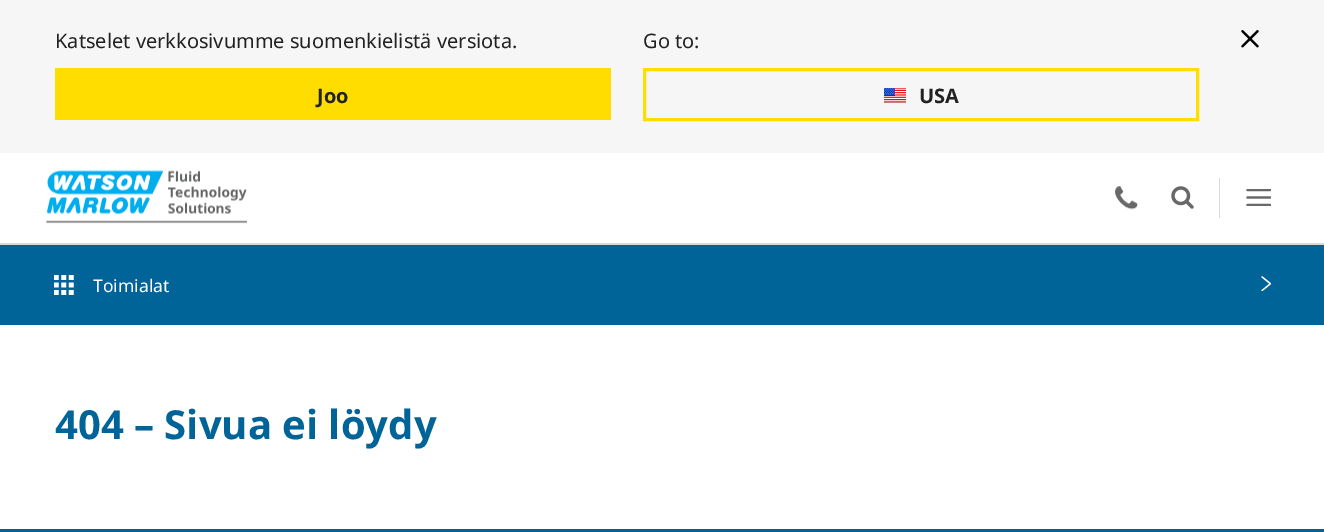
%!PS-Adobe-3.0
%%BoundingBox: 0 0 1324 532
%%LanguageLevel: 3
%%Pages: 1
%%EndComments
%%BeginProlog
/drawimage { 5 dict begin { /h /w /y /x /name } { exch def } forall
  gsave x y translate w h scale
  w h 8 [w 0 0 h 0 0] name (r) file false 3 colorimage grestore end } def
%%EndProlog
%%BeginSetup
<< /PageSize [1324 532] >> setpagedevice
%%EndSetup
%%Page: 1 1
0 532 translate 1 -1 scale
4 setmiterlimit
1 setgray
0 0 1324 532 rectfill
0.965 setgray
0 0 1324 153 rectfill
1 0.867 0 setrgbcolor
55 68 556 52 rectfill
3 setlinewidth
644.5 69.5 553 50 rectstroke
(images/1.raw) 884 88 22 15 drawimage
(images/2.raw) 1241 30 18 18 drawimage
(images/3.raw) 46 170 201 54 drawimage
(images/4.raw) 1115 186 23 24 drawimage
(images/5.raw) 1171 186 23 23 drawimage
0.851 setgray
1219 178 1 40 rectfill
(images/6.raw) 1246 189 25 17 drawimage
0 0.392 0.596 setrgbcolor
0 245 1324 80 rectfill
0.851 setgray
0 243 1324 2 rectfill
(images/7.raw) 54 275 20 20 drawimage
(images/8.raw) 1261 276 10 15 drawimage
0 0.392 0.596 setrgbcolor
0 529 1324 3 rectfill
/NotoSans-Regular [20 0 0 -20 0 0] selectfont
0.133 setgray
55 48 moveto (Katselet verkkosivumme suomenkielistä versiota.) show
/NotoSans-Bold [20 0 0 -20 0 0] selectfont
317 103 moveto (Joo) show
/NotoSans-Regular [20 0 0 -20 0 0] selectfont
643 48 moveto (Go to:) show
/NotoSans-Bold [20 0 0 -20 0 0] selectfont
919 103 moveto (USA) show
/NotoSans-Regular [17.5 0 0 -17.5 0 0] selectfont
1 setgray
93 292 moveto (Toimialat) show
/NotoSans-Bold [40 0 0 -40 0 0] selectfont
0 0.392 0.596 setrgbcolor
55 439 moveto (404 – Sivua ei löydy) show
showpage
%%EOF
